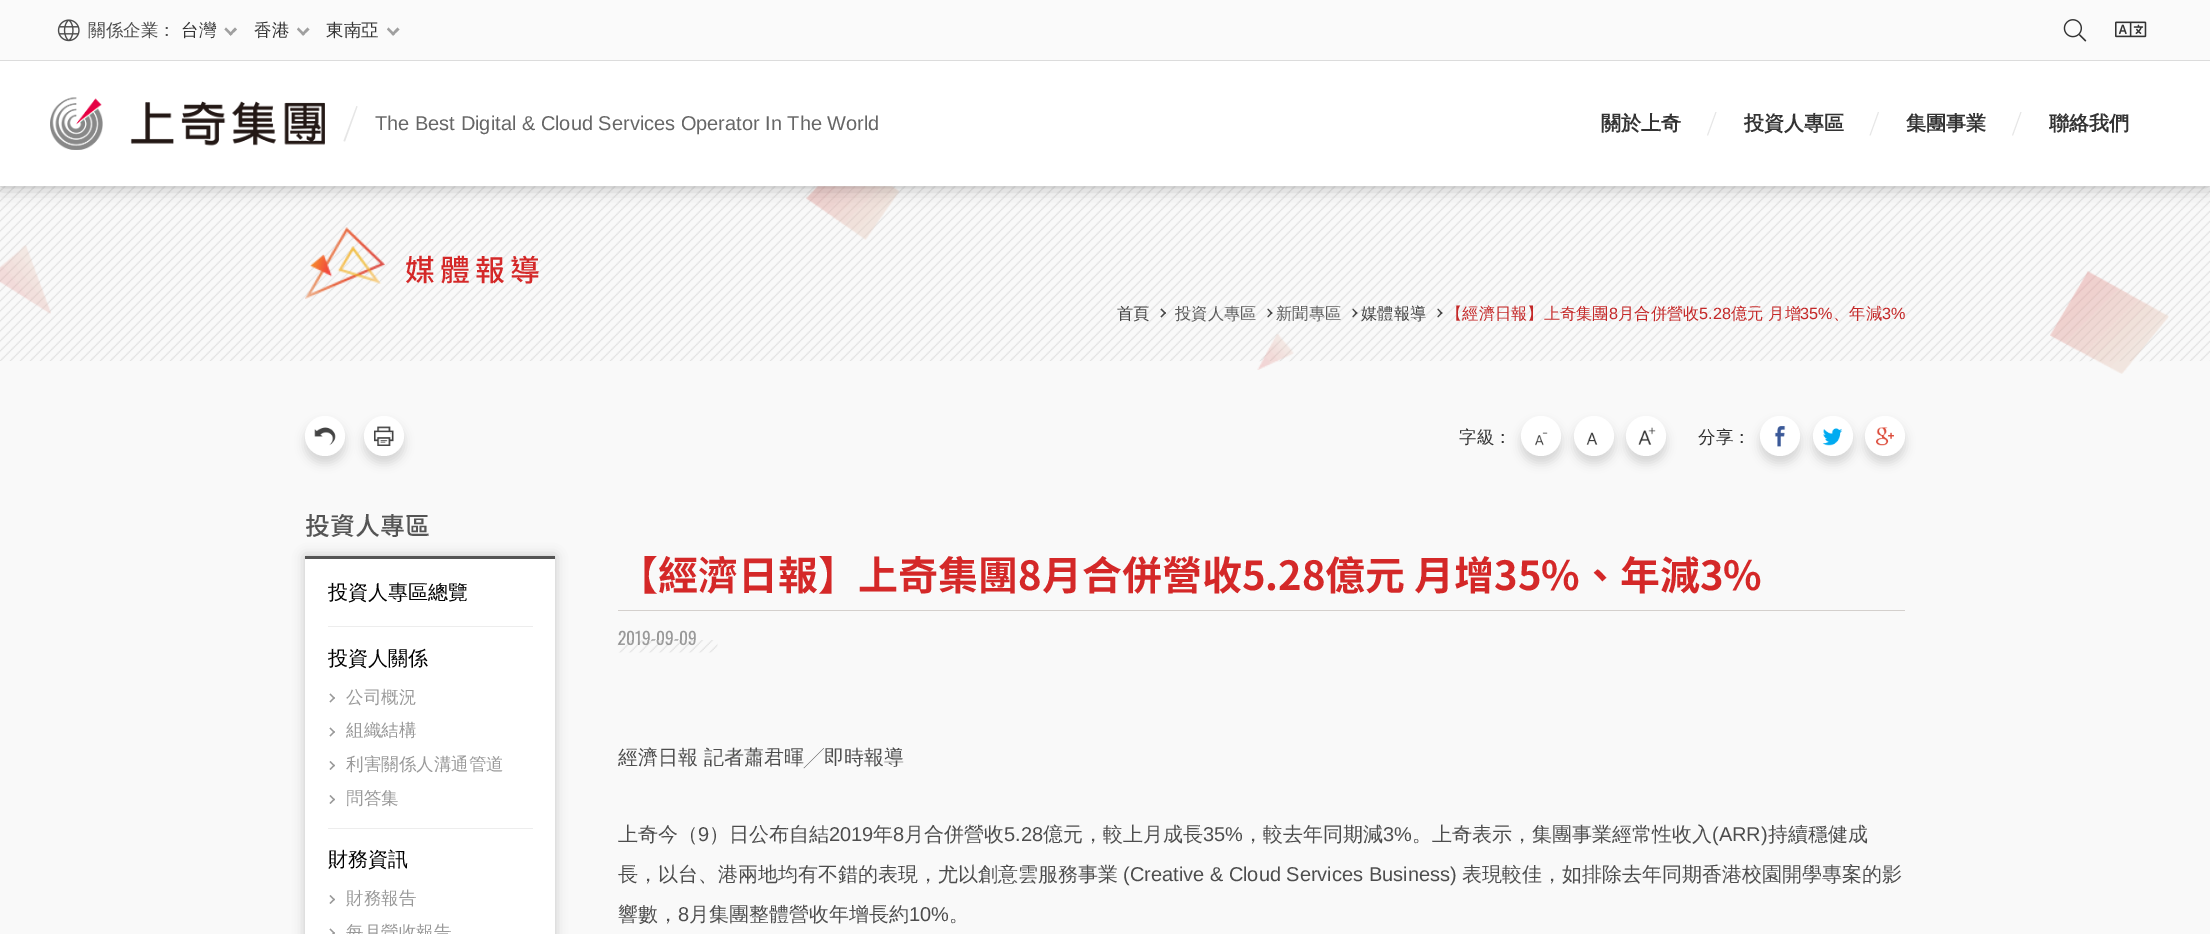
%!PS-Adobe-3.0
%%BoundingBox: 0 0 2210 934
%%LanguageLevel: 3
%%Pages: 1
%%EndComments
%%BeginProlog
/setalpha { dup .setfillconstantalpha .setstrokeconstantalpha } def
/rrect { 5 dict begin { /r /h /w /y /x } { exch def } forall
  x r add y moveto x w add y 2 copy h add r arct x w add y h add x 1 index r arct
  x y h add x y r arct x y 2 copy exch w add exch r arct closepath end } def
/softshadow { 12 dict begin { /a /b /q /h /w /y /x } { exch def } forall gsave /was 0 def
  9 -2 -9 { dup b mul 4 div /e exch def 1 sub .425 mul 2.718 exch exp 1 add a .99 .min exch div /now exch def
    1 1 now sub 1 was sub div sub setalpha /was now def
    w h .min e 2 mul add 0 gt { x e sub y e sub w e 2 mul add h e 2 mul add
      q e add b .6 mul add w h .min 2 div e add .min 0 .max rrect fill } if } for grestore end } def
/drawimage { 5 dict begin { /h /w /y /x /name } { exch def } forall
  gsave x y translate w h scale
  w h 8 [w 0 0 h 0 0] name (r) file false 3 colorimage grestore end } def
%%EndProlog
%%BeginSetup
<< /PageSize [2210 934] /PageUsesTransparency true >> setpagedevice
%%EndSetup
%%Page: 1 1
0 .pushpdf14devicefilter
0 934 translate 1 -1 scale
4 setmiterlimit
0.976 setgray
0 0 2210 934 rectfill
(images/5.raw) 0 186 2210 175 drawimage
(images/6.raw) 806 186 93 54 drawimage
0 setgray
0 0 2210 186 0 9.5 0.3 softshadow
1 setgray
0 61 2210 125 rectfill
0.98 setgray
0 0 2210 60 rectfill
0.863 setgray
0 60 2210 1 rectfill
(images/1.raw) 57 19 23 23 drawimage
0.624 setgray
newpath 235 27.5 moveto 237 29.5 lineto 230.5 35.5 lineto 229 34 lineto closepath fill
newpath 226 27.5 moveto 232.5 34 lineto 230.5 35.5 lineto 224.5 29.5 lineto closepath fill
newpath 307.5 27.5 moveto 309.5 29.5 lineto 303 35.5 lineto 301.5 34 lineto closepath fill
newpath 298.5 27.5 moveto 305 34 lineto 303 35.5 lineto 297 29.5 lineto closepath fill
newpath 397.5 27.5 moveto 399.5 29.5 lineto 393 35.5 lineto 391.5 34 lineto closepath fill
newpath 388.5 27.5 moveto 395 34 lineto 393 35.5 lineto 387 29.5 lineto closepath fill
(images/2.raw) 2063 19 24 23 drawimage
(images/3.raw) 2115 21 32 17 drawimage
(images/4.raw) 50 97 275 53 drawimage
0.902 setgray
newpath 356.5 106 moveto 357.5 106.5 lineto 345 141.5 lineto 343.5 141 lineto closepath fill
newpath 1715.5 112 moveto 1716.5 112 lineto 1708 135.5 lineto 1707 135.5 lineto closepath fill
newpath 1878 112 moveto 1879 112 lineto 1870.5 135.5 lineto 1869.5 135.5 lineto closepath fill
newpath 2020.5 112 moveto 2021.5 112 lineto 2013 135.5 lineto 2012 135.5 lineto closepath fill
(images/7.raw) 0 245 51 69 drawimage
(images/8.raw) 305 227 80 72 drawimage
(images/9.raw) 1257 334 37 36 drawimage
(images/10.raw) 2050 271 119 103 drawimage
0.267 setgray
newpath 1166 313 moveto 1161.5 317.5 lineto 1160.5 316.5 lineto 1165 312 lineto closepath fill
newpath 1166 313 moveto 1165 314 lineto 1160.5 309.5 lineto 1161.5 308.5 lineto closepath fill
newpath 1272.5 313 moveto 1268 317.5 lineto 1267.5 316.5 lineto 1271.5 312 lineto closepath fill
newpath 1272.5 313 moveto 1271.5 314 lineto 1267.5 309.5 lineto 1268 308.5 lineto closepath fill
newpath 1357.5 313 moveto 1353 317.5 lineto 1352.5 316.5 lineto 1356.5 312 lineto closepath fill
newpath 1357.5 313 moveto 1356.5 314 lineto 1352.5 309.5 lineto 1353 308.5 lineto closepath fill
newpath 1442.5 313 moveto 1438 317.5 lineto 1437.5 316.5 lineto 1441.5 312 lineto closepath fill
newpath 1442.5 313 moveto 1441.5 314 lineto 1437.5 309.5 lineto 1438 308.5 lineto closepath fill
0 setgray
305 423 40 40 20 5 0.15 softshadow
1 setgray
newpath 325 436 20 0 360 arc closepath fill
(images/11.raw) 314 427 22 19 drawimage
0 setgray
364 423 40 40 20 5 0.15 softshadow
1 setgray
newpath 384 436 20 0 360 arc closepath fill
(images/12.raw) 374 426 20 20 drawimage
0 setgray
1521 423 40 40 20 5 0.15 softshadow
1 setgray
newpath 1541 436 20 0 360 arc closepath fill
(images/13.raw) 1535 432 13 14 drawimage
0 setgray
1574 423 40 40 20 5 0.15 softshadow
1 setgray
newpath 1594 436 20 0 360 arc closepath fill
(images/14.raw) 1586 432 12 13 drawimage
0 setgray
1626 423 40 40 20 5 0.15 softshadow
1 setgray
newpath 1646 436 20 0 360 arc closepath fill
(images/15.raw) 1638 427 18 18 drawimage
0 setgray
1760 423 40 40 20 5 0.15 softshadow
1 setgray
newpath 1780 436 20 0 360 arc closepath fill
(images/16.raw) 1774 426 12 21 drawimage
0 setgray
1813 423 40 40 20 5 0.15 softshadow
1 setgray
newpath 1833 436 20 0 360 arc closepath fill
(images/17.raw) 1822 428 21 18 drawimage
0 setgray
1865 423 40 40 20 5 0.15 softshadow
1 setgray
newpath 1885 436 20 0 360 arc closepath fill
(images/18.raw) 1876 427 18 19 drawimage
0 setgray
305 556 250 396 0 6 0.2 softshadow
1 setgray
305 559 250 375 rectfill
0.333 setgray
305 556 250 3 rectfill
0.929 setgray
328 626 205 1 rectfill
328 828 205 1 rectfill
0.6 setgray
newpath 330.5 693.5 moveto 335 698 lineto 334 699 lineto 329.5 694.5 lineto closepath fill
newpath 334 697 moveto 335 698 lineto 330.5 702.5 lineto 329.5 701.5 lineto closepath fill
newpath 330.5 727.5 moveto 335 732 lineto 334 733 lineto 329.5 728.5 lineto closepath fill
newpath 334 731 moveto 335 732 lineto 330.5 736.5 lineto 329.5 735.5 lineto closepath fill
newpath 330.5 761 moveto 335 765.5 lineto 334 766.5 lineto 329.5 762 lineto closepath fill
newpath 334 764.5 moveto 335 765.5 lineto 330.5 770 lineto 329.5 769 lineto closepath fill
newpath 330.5 795 moveto 335 799.5 lineto 334 800.5 lineto 329.5 796 lineto closepath fill
newpath 334 798.5 moveto 335 799.5 lineto 330.5 804 lineto 329.5 803 lineto closepath fill
newpath 330.5 895 moveto 335 899.5 lineto 334 900.5 lineto 329.5 896 lineto closepath fill
newpath 334 898.5 moveto 335 899.5 lineto 330.5 904 lineto 329.5 903 lineto closepath fill
newpath 330.5 928.5 moveto 335 933 lineto 334 934 lineto 329.5 929.5 lineto closepath fill
newpath 334 932 moveto 335 933 lineto 330.5 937.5 lineto 329.5 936.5 lineto closepath fill
0.831 0.816 0.804 setrgbcolor
618 610 1287 1 rectfill
/WenQuanYiZenHei-Medium [17.5 0 0 -17.5 0 0] selectfont
0.302 setgray
88 36 moveto (關係企業：) show
0.2 setgray
181 36 moveto (台灣) show
254 36 moveto (香港) show
326 36 moveto (東南亞) show
/LiberationSans-Regular [20 0 0 -20 0 0] selectfont
0.4 setgray
375 130 moveto (The Best Digital & Cloud Services Operator In The World) show
/WenQuanYiZenHei-Bold [20 0 0 -20 0 0] selectfont
0.2 setgray
1601 130 moveto (關於上奇) show
1744 130 moveto (投資人專區) show
1906 130 moveto (集團事業) show
2049 130 moveto (聯絡我們) show
/NotoSansTC-Medium [30 0 0 -30 0 0] selectfont
0.831 0.157 0.157 setrgbcolor
405 281 moveto 5 0 (媒體報導) ashow
/WenQuanYiZenHei-Medium [16.25 0 0 -16.25 0 0] selectfont
0.267 setgray
1117 319 moveto (首頁) show
0.357 setgray
1175 319 moveto (投資人專區) show
1276 319 moveto (新聞專區) show
0.267 setgray
1361 319 moveto (媒體報導) show
0.769 0.157 0.157 setrgbcolor
1446 319 moveto (【經濟日報】上奇集團) show
/LiberationSans-Regular [16.25 0 0 -16.25 0 0] selectfont
1609 319 moveto (8) show
/WenQuanYiZenHei-Medium [16.25 0 0 -16.25 0 0] selectfont
1618 319 moveto (月合併營收) show
/LiberationSans-Regular [16.25 0 0 -16.25 0 0] selectfont
1699 319 moveto (5.28) show
/WenQuanYiZenHei-Medium [16.25 0 0 -16.25 0 0] selectfont
1731 319 moveto (億元 月增) show
/LiberationSans-Regular [16.25 0 0 -16.25 0 0] selectfont
1800 319 moveto (35%) show
/WenQuanYiZenHei-Medium [16.25 0 0 -16.25 0 0] selectfont
1833 319 moveto (、年減) show
/LiberationSans-Regular [16.25 0 0 -16.25 0 0] selectfont
1882 319 moveto (3%) show
/WenQuanYiZenHei-Medium [17.5 0 0 -17.5 0 0] selectfont
0.2 setgray
1459 443 moveto (字級：) show
1698 443 moveto (分享：) show
/NotoSansTC-Medium [25 0 0 -25 0 0] selectfont
0.333 setgray
305 535 moveto (投資人專區) show
/WenQuanYiZenHei-Medium [20 0 0 -20 0 0] selectfont
0 setgray
328 599 moveto (投資人專區總覽) show
328 665 moveto (投資人關係) show
/WenQuanYiZenHei-Medium [17.5 0 0 -17.5 0 0] selectfont
0.6 setgray
346 703 moveto (公司概況) show
346 736 moveto (組織結構) show
346 770 moveto (利害關係人溝通管道) show
346 804 moveto (問答集) show
/WenQuanYiZenHei-Medium [20 0 0 -20 0 0] selectfont
0 setgray
328 866 moveto (財務資訊) show
/WenQuanYiZenHei-Medium [17.5 0 0 -17.5 0 0] selectfont
0.6 setgray
346 904 moveto (財務報告) show
346 938 moveto (每月營收報告) show
/NotoSansTC-Bold [40 0 0 -40 0 0] selectfont
0.831 0.157 0.157 setrgbcolor
618 590 moveto (【經濟日報】上奇集團8月合併營收5.28億元 月增35%、年減3%) show
/Oswald-Regular [17.5 0 0 -17.5 0 0] selectfont
0.6 setgray
618 645 moveto (2019-09-09) show
(images/19.raw) 617 640 101 13 drawimage
gsave
618 700 1287 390 rectclip
/WenQuanYiZenHei-Medium [20 0 0 -20 0 0] selectfont
0.302 setgray
618 764 moveto (經濟日報 記者蕭君暉╱即時報導) show
grestore
/WenQuanYiZenHei-Medium [20 0 0 -20 0 0] selectfont
0.302 setgray
618 841 moveto (上奇今（) show
/LiberationSans-Regular [20 0 0 -20 0 0] selectfont
698 841 moveto (9) show
/WenQuanYiZenHei-Medium [20 0 0 -20 0 0] selectfont
709 841 moveto (）日公布自結) show
/LiberationSans-Regular [20 0 0 -20 0 0] selectfont
829 841 moveto (2019) show
/WenQuanYiZenHei-Medium [20 0 0 -20 0 0] selectfont
873 841 moveto (年) show
/LiberationSans-Regular [20 0 0 -20 0 0] selectfont
893 841 moveto (8) show
/WenQuanYiZenHei-Medium [20 0 0 -20 0 0] selectfont
904 841 moveto (月合併營收) show
/LiberationSans-Regular [20 0 0 -20 0 0] selectfont
1004 841 moveto (5.28) show
/WenQuanYiZenHei-Medium [20 0 0 -20 0 0] selectfont
1043 841 moveto (億元，較上月成長) show
/LiberationSans-Regular [20 0 0 -20 0 0] selectfont
1203 841 moveto (35%) show
/WenQuanYiZenHei-Medium [20 0 0 -20 0 0] selectfont
1243 841 moveto (，較去年同期減) show
/LiberationSans-Regular [20 0 0 -20 0 0] selectfont
1383 841 moveto (3%) show
/WenQuanYiZenHei-Medium [20 0 0 -20 0 0] selectfont
1412 841 moveto (。上奇表示，集團事業經常性收入) show
/LiberationSans-Regular [20 0 0 -20 0 0] selectfont
1712 841 moveto (\(ARR\)) show
/WenQuanYiZenHei-Medium [20 0 0 -20 0 0] selectfont
1768 841 moveto (持續穩健成) show
618 881 moveto (長，以台、港兩地均有不錯的表現，尤以創意雲服務事業) show
/LiberationSans-Regular [20 0 0 -20 0 0] selectfont
1123 881 moveto (\(Creative & Cloud Services Business\)) show
/WenQuanYiZenHei-Medium [20 0 0 -20 0 0] selectfont
1462 881 moveto (表現較佳，如排除去年同期香港校園開學專案的影) show
618 921 moveto (響數，) show
/LiberationSans-Regular [20 0 0 -20 0 0] selectfont
678 921 moveto (8) show
/WenQuanYiZenHei-Medium [20 0 0 -20 0 0] selectfont
689 921 moveto (月集團整體營收年增長約) show
/LiberationSans-Regular [20 0 0 -20 0 0] selectfont
909 921 moveto (10%) show
/WenQuanYiZenHei-Medium [20 0 0 -20 0 0] selectfont
949 921 moveto (。) show
.poppdf14devicefilter showpage
%%EOF
